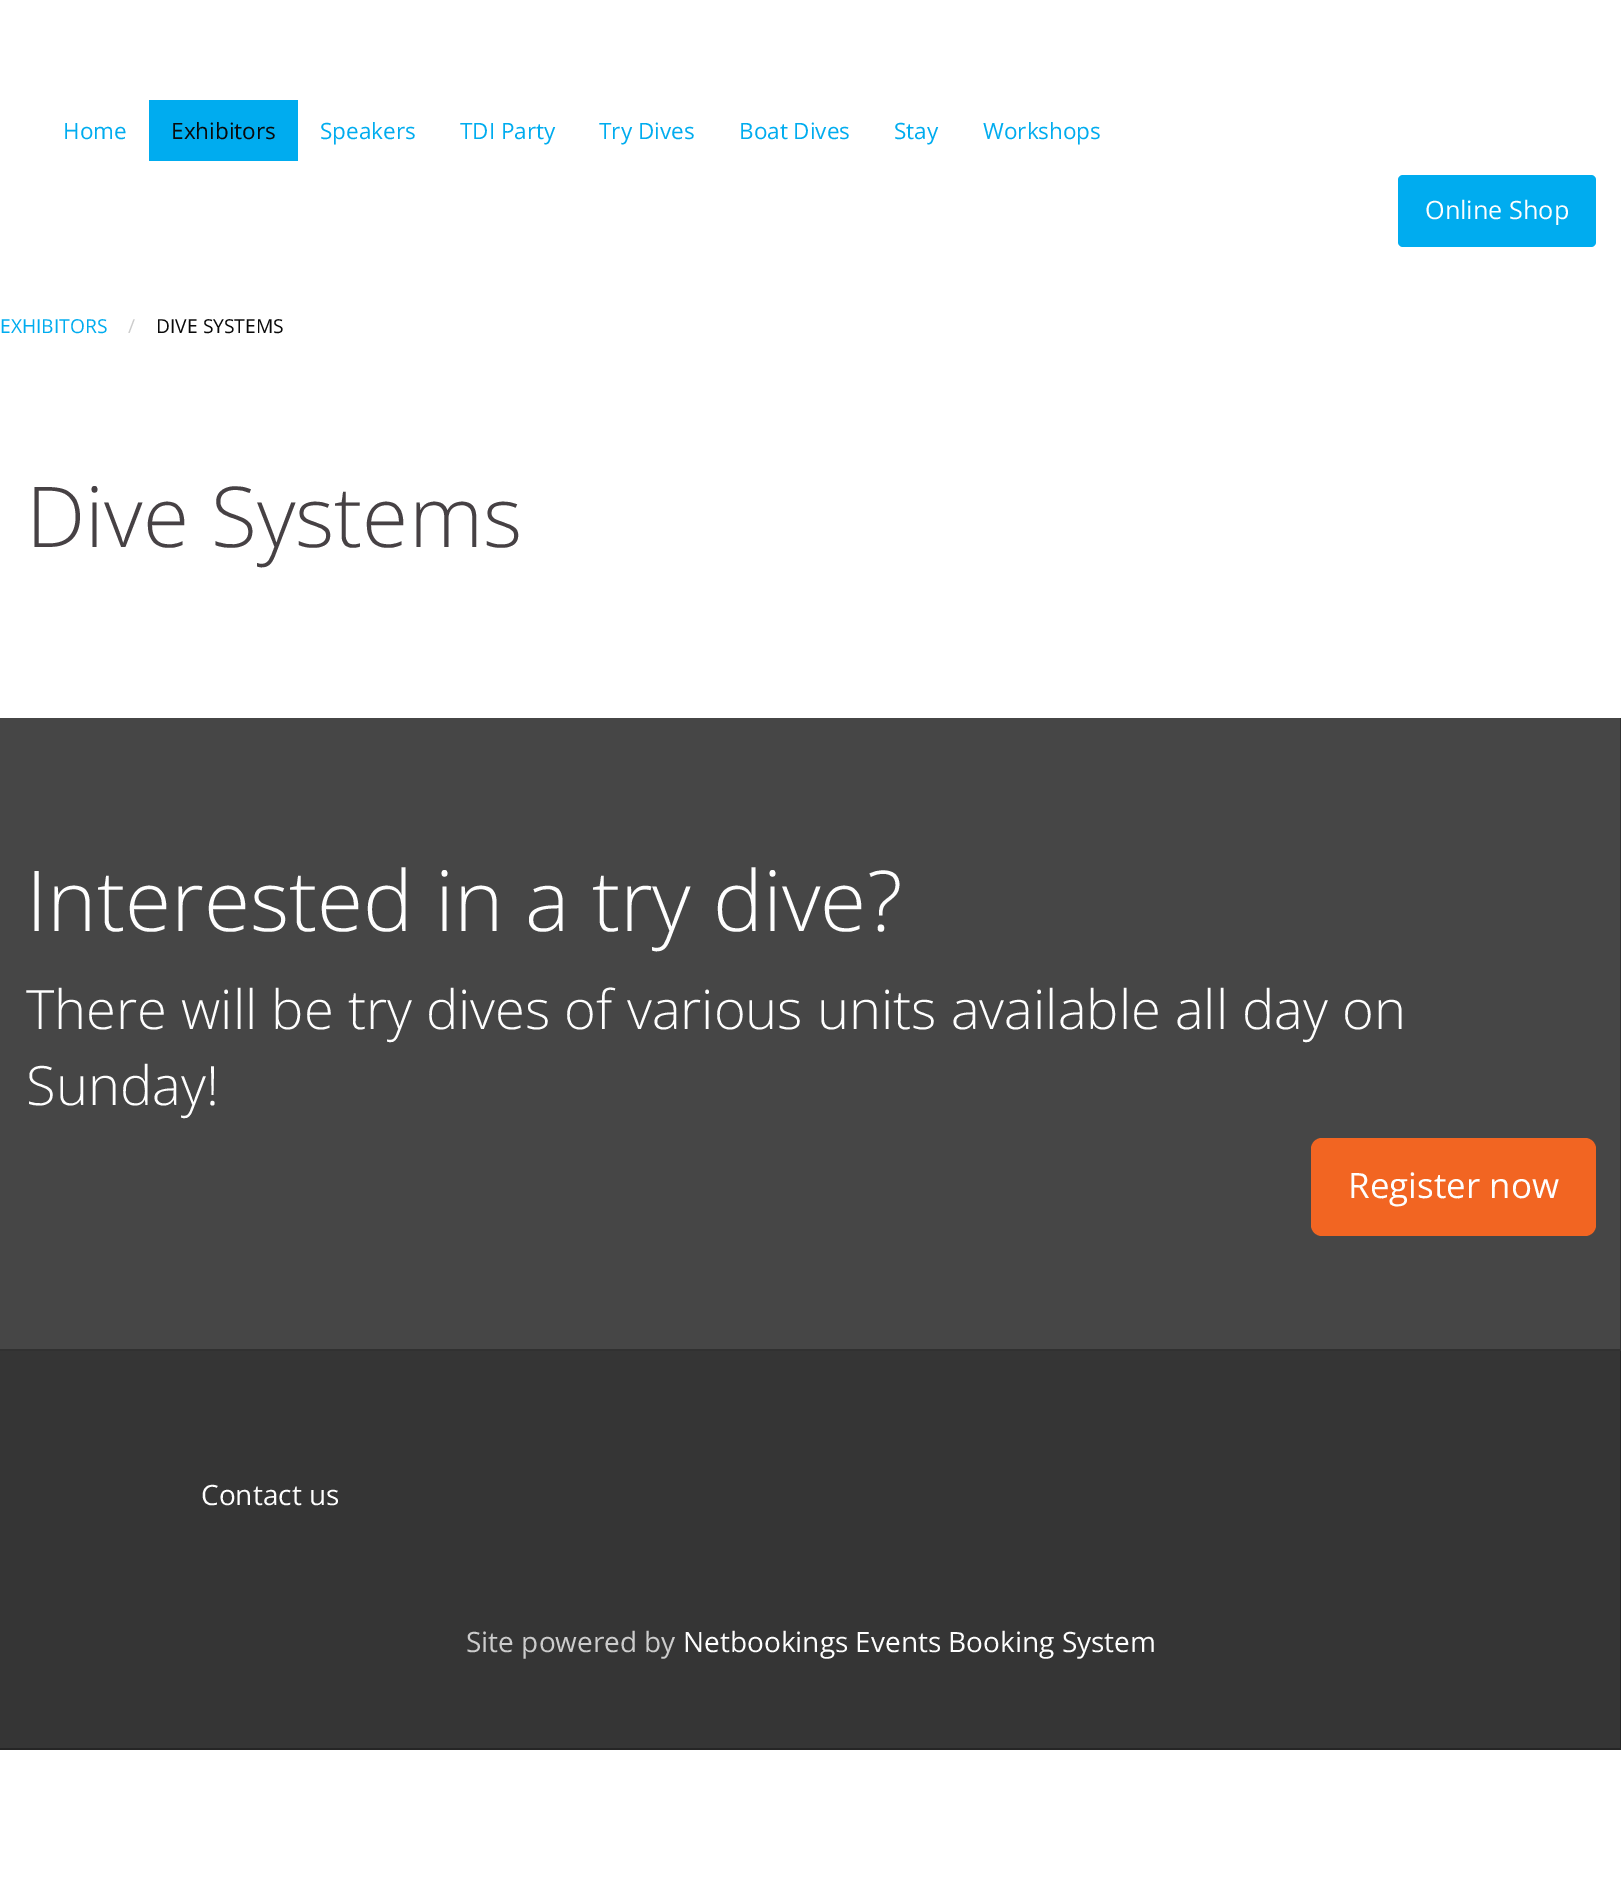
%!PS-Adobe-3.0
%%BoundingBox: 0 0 1621 1886
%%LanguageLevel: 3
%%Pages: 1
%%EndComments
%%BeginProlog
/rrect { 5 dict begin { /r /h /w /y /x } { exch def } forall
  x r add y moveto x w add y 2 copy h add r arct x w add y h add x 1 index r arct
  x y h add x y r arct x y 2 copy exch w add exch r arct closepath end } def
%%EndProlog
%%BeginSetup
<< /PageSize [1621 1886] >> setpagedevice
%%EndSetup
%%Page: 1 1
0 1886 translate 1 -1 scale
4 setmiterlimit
1 setgray
0 0 1621 1886 rectfill
0 0.675 0.937 setrgbcolor
149 100 149 61 rectfill
1398 175 198 72 5 rrect fill
0.275 setgray
0 718 1620 631 rectfill
gsave
0 718 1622 633 rectclip
0.192 setgray
newpath -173 544 moveto 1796 544 lineto 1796 1524 lineto -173 1524 lineto closepath -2 716 moveto 1620 716 lineto 1620 1349 lineto -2 1349 lineto closepath eofill
grestore
0.949 0.396 0.133 setrgbcolor
1311 1138 285 98 11 rrect fill
0.208 setgray
0 1351 1620 397 rectfill
gsave
0 1351 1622 399 rectclip
0.145 setgray
newpath -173 1178 moveto 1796 1178 lineto 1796 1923 lineto -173 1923 lineto closepath -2 1349 moveto 1620 1349 lineto 1620 1748 lineto -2 1748 lineto closepath eofill
grestore
/OpenSans-Regular [22.5 0 0 -22.5 0 0] selectfont
0 0.675 0.937 setrgbcolor
63 139 moveto (Home) show
0.039 setgray
171 139 moveto (Exhibitors) show
0 0.675 0.937 setrgbcolor
320 139 moveto (Speakers) show
460 139 moveto (TDI Party) show
599 139 moveto (Try Dives) show
739 139 moveto (Boat Dives) show
894 139 moveto (Stay) show
983 139 moveto (Workshops) show
/OpenSans-Regular [25.25 0 0 -25.25 0 0] selectfont
0.996 setgray
1425 219 moveto (Online Shop) show
/OpenSans-Regular [19.25 0 0 -19.25 0 0] selectfont
0 0.675 0.937 setrgbcolor
0 333 moveto (EXHIBITORS) show
0.8 setgray
128 333 moveto (/) show
0.039 setgray
156 333 moveto (DIVE SYSTEMS) show
/OpenSans-Light [84 0 0 -84 0 0] selectfont
0.275 0.255 0.267 setrgbcolor
26 547 moveto (Dive Systems) show
0.996 setgray
26 931 moveto (Interested in a try dive?) show
/OpenSans-Light [54.25 0 0 -54.25 0 0] selectfont
26 1029 moveto (There will be try dives of various units available all day on) show
26 1105 moveto (Sunday!) show
/OpenSans-Regular [35 0 0 -35 0 0] selectfont
1348 1198 moveto (Register now) show
/OpenSans-Regular [28 0 0 -28 0 0] selectfont
201 1505 moveto (Contact us) show
0.8 setgray
466 1652 moveto (Site powered by) show
0.996 setgray
683 1652 moveto (Netbookings Events Booking System) show
showpage
%%EOF
